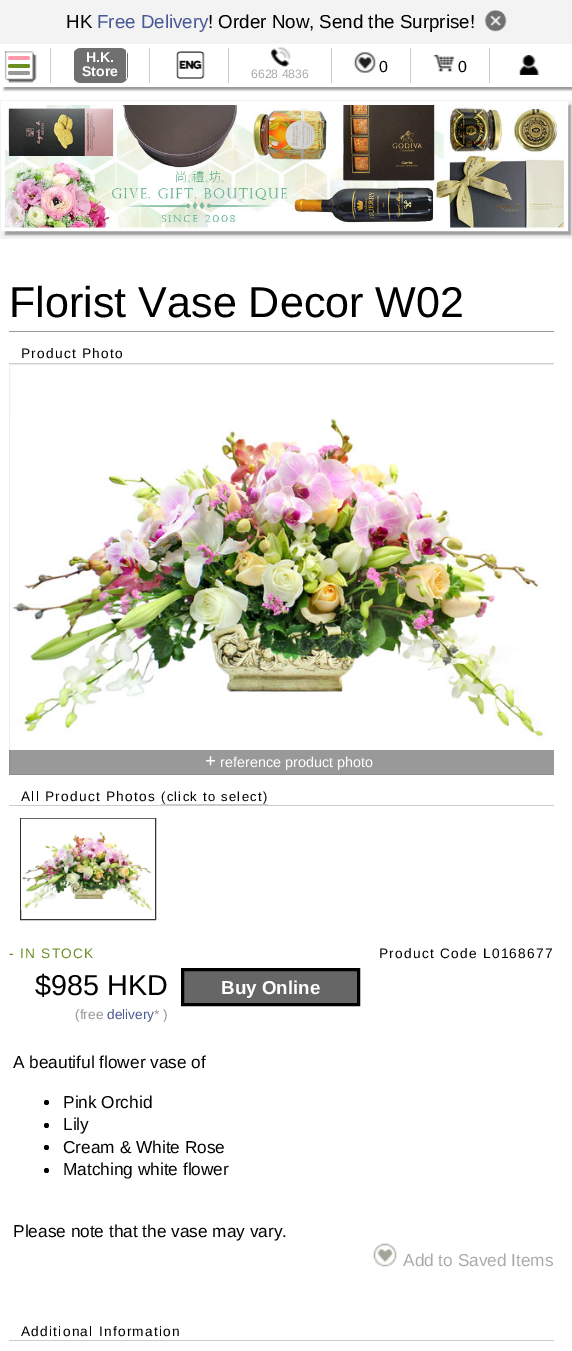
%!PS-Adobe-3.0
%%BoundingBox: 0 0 572 1351
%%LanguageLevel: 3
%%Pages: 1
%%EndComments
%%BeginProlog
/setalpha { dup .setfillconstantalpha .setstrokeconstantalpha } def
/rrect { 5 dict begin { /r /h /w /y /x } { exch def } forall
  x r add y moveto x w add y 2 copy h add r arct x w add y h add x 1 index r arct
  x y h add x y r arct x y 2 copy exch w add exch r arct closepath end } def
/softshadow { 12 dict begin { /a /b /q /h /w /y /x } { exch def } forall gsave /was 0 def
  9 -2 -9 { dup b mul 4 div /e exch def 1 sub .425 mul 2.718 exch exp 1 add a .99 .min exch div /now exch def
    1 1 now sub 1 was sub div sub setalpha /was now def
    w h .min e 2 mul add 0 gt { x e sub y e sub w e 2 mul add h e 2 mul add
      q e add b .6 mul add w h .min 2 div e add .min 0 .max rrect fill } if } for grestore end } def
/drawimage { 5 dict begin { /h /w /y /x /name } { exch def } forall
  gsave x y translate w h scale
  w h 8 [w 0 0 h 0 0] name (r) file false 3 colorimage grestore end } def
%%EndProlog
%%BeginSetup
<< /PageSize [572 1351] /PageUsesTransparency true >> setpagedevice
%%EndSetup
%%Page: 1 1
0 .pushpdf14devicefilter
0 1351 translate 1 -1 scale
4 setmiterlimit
1 setgray
0 0 572 1351 rectfill
gsave
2 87 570 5 rectclip
0.6 setgray
4 48 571 42 0 1 1 softshadow
grestore
(images/1.raw) 4 51 33 32 drawimage
9 57 20 17 rectfill
1 0.6 0.667 setrgbcolor
8 56 22 4 2 rrect fill
0.42 0.557 0.137 setrgbcolor
8 64 22 4 2 rrect fill
0.6 setgray
8 71 22 4 2 rrect fill
0.953 setgray
0 0 572 44 rectfill
(images/2.raw) 484 10 23 22 drawimage
0.8 setgray
50 45 1 40 rectfill
149 45 1 40 rectfill
331 45 1 40 rectfill
410 45 1 40 rectfill
489 45 1 40 rectfill
228 45 1 40 rectfill
1 setgray
50 45 440 3 rectfill
0 83 572 4 rectfill
0.435 setgray
73 48 55 35 8 rrect fill
1 setgray
126 51 1 28 rectfill
73 51 1 28 rectfill
(images/3.raw) 176 51 29 28 drawimage
(images/4.raw) 354 52 22 21 drawimage
(images/5.raw) 433 54 22 18 drawimage
(images/6.raw) 519 55 21 20 drawimage
(images/7.raw) 270 47 21 20 drawimage
0.953 setgray
0 100 572 139 rectfill
0.6 setgray
5 105 566 130 0 1 1 softshadow
1 setgray
4 setlinewidth
3 103 563 126 rectstroke
(images/8.raw) 5 105 559 123 drawimage
0.6 setgray
9 331 545 1 rectfill
0.8 setgray
9 363 545 1 rectfill
gsave
9 364 545 411 rectclip
0.933 setgray
1 setlinewidth
9.5 364.5 546 410 rectstroke
grestore
(images/9.raw) 10 418 537 322 drawimage
0.4 setalpha
0 setgray
9 750 545 25 rectfill
1 setalpha
0.8 setgray
9 805 545 1 rectfill
161 804 107 1 rectfill
0.2 setgray
1 setlinewidth
20.5 818.5 135 101 rectstroke
(images/10.raw) 21 818 134 92 drawimage
0.4 setgray
newpath 182.5 969.5 moveto 358.5 969.5 lineto 358.5 1004.5 lineto 182.5 1004.5 lineto closepath gsave fill grestore
0 setgray
3 setlinewidth
stroke
newpath 46.5 1102.5 2.5 0 360 arc closepath fill
newpath 46.5 1125.5 2.5 0 360 arc closepath fill
newpath 46.5 1147.5 2.5 0 360 arc closepath fill
newpath 46.5 1170.5 2.5 0 360 arc closepath fill
(images/11.raw) 373 1243 24 24 drawimage
0.8 setgray
9 1340 545 1 rectfill
/LiberationSans-Regular [18.75 0 0 -18.75 0 0] selectfont
0 setgray
66 28 moveto (HK) show
0.286 0.349 0.584 setrgbcolor
97 28 moveto (Free Delivery) show
0 setgray
208 28 moveto (! Order Now, Send the Surprise!) show
/LiberationSans-Bold [14 0 0 -14 0 0] selectfont
1 setgray
86 62 moveto (H.K.) show
82 76 moveto (Store) show
/LiberationSans-Regular [16 0 0 -16 0 0] selectfont
0 setgray
379 72 moveto (0) show
458 72 moveto (0) show
/LiberationSans-Regular [12.25 0 0 -12.25 0 0] selectfont
0.667 setgray
251 78 moveto (6628 4836) show
/LiberationSans-Regular [43.1 0 0 -43.1 0 0] selectfont
0 setgray
9 317 moveto (Florist Vase Decor W02) show
/LiberationSans-Regular [13.7 0 0 -13.7 0 0] selectfont
21 358 moveto 1.25 0 (Product Photo) ashow
/LiberationSans-Regular [18.75 0 0 -18.75 0 0] selectfont
1 setgray
205 767 moveto (+) show
/LiberationSans-Regular [14.4 0 0 -14.4 0 0] selectfont
220 767 moveto (reference product photo) show
/LiberationSans-Regular [13.7 0 0 -13.7 0 0] selectfont
0 setgray
21 801 moveto 1.25 0 (All Product Photos) ashow
/LiberationSans-Regular [13 0 0 -13 0 0] selectfont
161 801 moveto 1.25 0 (\(click to select\)) ashow
/LiberationSans-Regular [13.7 0 0 -13.7 0 0] selectfont
0.42 0.557 0.137 setrgbcolor
9 958 moveto 1.25 0 (- IN STOCK) ashow
0 setgray
379 958 moveto 1.25 0 (Product Code L0168677) ashow
/LiberationSans-Regular [28.75 0 0 -28.75 0 0] selectfont
35 995 moveto ($985 HKD) show
/LiberationSans-Regular [13.7 0 0 -13.7 0 0] selectfont
0.6 setgray
75 1019 moveto (\(free) show
0.286 0.349 0.584 setrgbcolor
107 1019 moveto (delivery) show
0.6 setgray
154 1019 moveto (* \)) show
/LiberationSans-Bold [18.75 0 0 -18.75 0 0] selectfont
1 setgray
221 994 moveto (Buy Online) show
/LiberationSans-Regular [17.25 0 0 -17.25 0 0] selectfont
0 setgray
13 1068 moveto (A beautiful flower vase of) show
63 1108 moveto (Pink Orchid) show
63 1130 moveto (Lily) show
63 1153 moveto (Cream & White Rose) show
63 1175 moveto (Matching white flower) show
13 1237 moveto (Please note that the vase may vary.) show
0.667 setgray
403 1266 moveto (Add to Saved Items) show
/LiberationSans-Regular [13.7 0 0 -13.7 0 0] selectfont
0 setgray
21 1336 moveto 1.25 0 (Additional Information) ashow
.poppdf14devicefilter showpage
%%EOF
